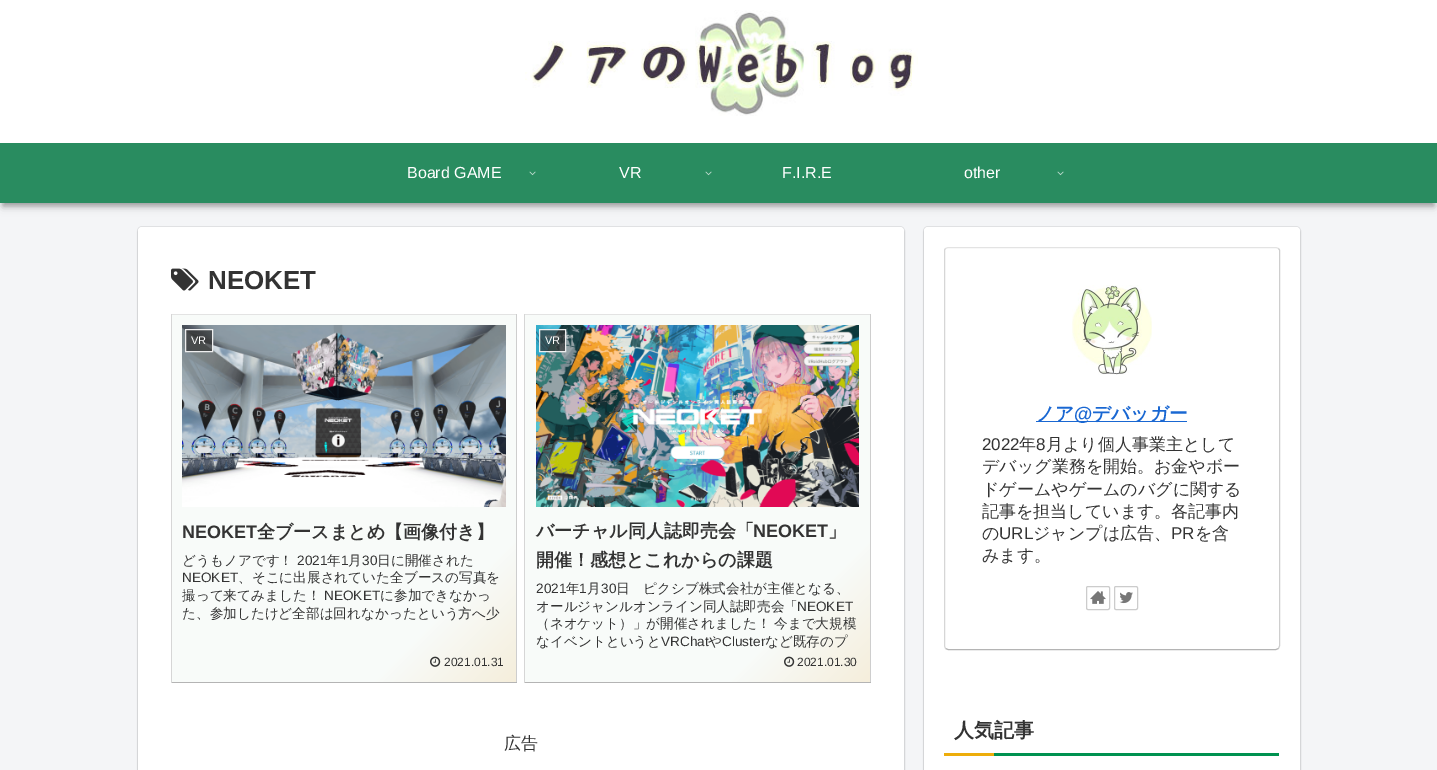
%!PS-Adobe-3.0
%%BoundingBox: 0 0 1437 770
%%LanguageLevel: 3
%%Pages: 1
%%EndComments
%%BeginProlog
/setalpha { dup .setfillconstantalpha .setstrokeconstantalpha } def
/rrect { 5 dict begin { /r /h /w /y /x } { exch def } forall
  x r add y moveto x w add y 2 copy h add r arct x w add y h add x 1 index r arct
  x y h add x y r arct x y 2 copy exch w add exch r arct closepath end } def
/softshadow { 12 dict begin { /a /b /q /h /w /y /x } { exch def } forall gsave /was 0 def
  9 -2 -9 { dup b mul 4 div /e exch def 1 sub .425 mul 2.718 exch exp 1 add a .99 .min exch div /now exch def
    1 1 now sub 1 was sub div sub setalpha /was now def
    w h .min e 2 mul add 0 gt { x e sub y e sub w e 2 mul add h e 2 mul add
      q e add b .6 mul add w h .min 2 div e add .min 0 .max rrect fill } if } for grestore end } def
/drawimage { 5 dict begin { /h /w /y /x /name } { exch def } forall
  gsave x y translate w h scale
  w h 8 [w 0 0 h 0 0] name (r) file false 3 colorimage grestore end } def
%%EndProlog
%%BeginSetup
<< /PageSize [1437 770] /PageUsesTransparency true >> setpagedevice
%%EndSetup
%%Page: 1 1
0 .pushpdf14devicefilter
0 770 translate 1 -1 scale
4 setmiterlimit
0.957 0.961 0.969 setrgbcolor
0 0 1437 770 rectfill
0 setgray
3 9 1431 197 0 5 0.18 softshadow
3 9 1431 197 0 2.5 0.24 softshadow
1 setgray
0 0 1437 143 rectfill
(images/1.raw) 525 10 393 106 drawimage
0.161 0.549 0.376 setrgbcolor
0 143 1437 60 rectfill
(images/2.raw) 529 171 7 5 drawimage
(images/2.raw) 705 171 7 5 drawimage
(images/2.raw) 1057 171 7 5 drawimage
0.878 0.882 0.89 setrgbcolor
137.5 226.5 767 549 4.5 rrect stroke
0 setgray
138 229 766 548 4 1 0.16 softshadow
1 setgray
138 227 766 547 4 rrect fill
(images/3.raw) 171 268 28 23 drawimage
gsave newpath 172 315 moveto 516 315 lineto 516 682 lineto 172 682 lineto closepath clip newpath
<< /ShadingType 2 /ColorSpace /DeviceRGB /Coords [166 321 522 676] /Extend [true true] /Function << /FunctionType 3 /Domain [0 1] /Functions [<< /FunctionType 2 /Domain [0 1] /C0 [0.973 0.984 0.976] /C1 [0.973 0.984 0.976] /N 1 >> << /FunctionType 2 /Domain [0 1] /C0 [0.973 0.984 0.976] /C1 [0.961 0.933 0.859] /N 1 >>] /Bounds [0.8] /Encode [0 1 0 1] >> >> shfill grestore
0.89 setgray
171 314 346 1 rectfill
0.808 setgray
516 314 1 369 rectfill
0.706 setgray
171 682 346 1 rectfill
0.839 setgray
171 314 1 369 rectfill
(images/4.raw) 182 325 324 182 drawimage
0.7 setalpha
0.2 setgray
newpath 185.5 329.5 moveto 212.5 329.5 lineto 212.5 351.5 lineto 185.5 351.5 lineto closepath fill
1 setalpha
0.933 setgray
newpath 185.5 329.5 moveto 212.5 329.5 lineto 212.5 351.5 lineto 185.5 351.5 lineto closepath stroke
(images/5.raw) 430 656 11 11 drawimage
gsave newpath 525 315 moveto 870 315 lineto 870 682 lineto 525 682 lineto closepath clip newpath
<< /ShadingType 2 /ColorSpace /DeviceRGB /Coords [520 321 876 677] /Extend [true true] /Function << /FunctionType 3 /Domain [0 1] /Functions [<< /FunctionType 2 /Domain [0 1] /C0 [0.973 0.984 0.976] /C1 [0.973 0.984 0.976] /N 1 >> << /FunctionType 2 /Domain [0 1] /C0 [0.973 0.984 0.976] /C1 [0.961 0.933 0.859] /N 1 >>] /Bounds [0.8] /Encode [0 1 0 1] >> >> shfill grestore
0.89 setgray
524 314 347 1 rectfill
0.808 setgray
870 314 1 369 rectfill
0.706 setgray
524 682 347 1 rectfill
0.839 setgray
524 314 1 369 rectfill
(images/6.raw) 536 325 323 182 drawimage
0.7 setalpha
0.2 setgray
newpath 539.5 329.5 moveto 565.5 329.5 lineto 565.5 351.5 lineto 539.5 351.5 lineto closepath fill
1 setalpha
0.933 setgray
newpath 539.5 329.5 moveto 565.5 329.5 lineto 565.5 351.5 lineto 539.5 351.5 lineto closepath stroke
(images/7.raw) 784 656 11 11 drawimage
0.878 0.882 0.89 setrgbcolor
923.5 226.5 377 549 4.5 rrect stroke
0 setgray
924 229 376 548 4 1 0.16 softshadow
1 setgray
924 227 376 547 4 rrect fill
0.89 setgray
newpath 945.5 248.5 moveto 948 247.5 lineto 1276 247.5 lineto 1278.5 248.5 lineto stroke
0.808 setgray
newpath 1278.5 248.5 moveto 1279.5 250 lineto 1279.5 382.5 lineto 1279.5 646 lineto 1278.5 648.5 lineto stroke
0.706 setgray
newpath 1278.5 648.5 moveto 1276 649.5 lineto 948 649.5 lineto 945.5 648.5 lineto stroke
0.839 setgray
newpath 945.5 648.5 moveto 944.5 646 lineto 944.5 250 lineto 945.5 248.5 lineto stroke
(images/8.raw) 1072 285 80 90 drawimage
0.098 0.404 0.824 setrgbcolor
1036 421 151 1 rectfill
0.8 setgray
1086.5 586.5 23 23 1.5 rrect stroke
(images/9.raw) 1090 591 16 13 drawimage
1114.5 586.5 23 23 1.5 rrect stroke
(images/10.raw) 1119 592 14 12 drawimage
0 0.573 0.314 setrgbcolor
994 753 285 3 rectfill
0.929 0.678 0.043 setrgbcolor
944 753 50 3 rectfill
/LiberationSans-Regular [16 0 0 -16 0 0] selectfont
1 setgray
407 178 moveto (Board GAME) show
619 178 moveto (VR) show
782 178 moveto (F.I.R.E) show
964 178 moveto (other) show
/LiberationSans-Bold [26 0 0 -26 0 0] selectfont
0.2 setgray
208 289 moveto (NEOKET) show
/LiberationSans-Regular [11 0 0 -11 0 0] selectfont
1 setgray
191 344 moveto (VR) show
/LiberationSans-Bold [18 0 0 -18 0 0] selectfont
0.2 setgray
182 538 moveto (NEOKET) show
/WenQuanYiZenHei-Bold [18 0 0 -18 0 0] selectfont
257 538 moveto (全ブースまとめ【画像付き】) show
/WenQuanYiZenHei-Medium [13.6 0 0 -13.6 0 0] selectfont
182 565 moveto (どうもノアです！) show
/LiberationSans-Regular [13.6 0 0 -13.6 0 0] selectfont
297 565 moveto (2021) show
/WenQuanYiZenHei-Medium [13.6 0 0 -13.6 0 0] selectfont
327 565 moveto (年) show
/LiberationSans-Regular [13.6 0 0 -13.6 0 0] selectfont
341 565 moveto (1) show
/WenQuanYiZenHei-Medium [13.6 0 0 -13.6 0 0] selectfont
348 565 moveto (月) show
/LiberationSans-Regular [13.6 0 0 -13.6 0 0] selectfont
362 565 moveto (30) show
/WenQuanYiZenHei-Medium [13.6 0 0 -13.6 0 0] selectfont
377 565 moveto (日に開催された) show
/LiberationSans-Regular [13.6 0 0 -13.6 0 0] selectfont
182 582 moveto (NEOKET) show
/WenQuanYiZenHei-Medium [13.6 0 0 -13.6 0 0] selectfont
238 582 moveto (、そこに出展されていた全ブースの写真を) show
182 600 moveto (撮って来てみました！) show
/LiberationSans-Regular [13.6 0 0 -13.6 0 0] selectfont
324 600 moveto (NEOKET) show
/WenQuanYiZenHei-Medium [13.6 0 0 -13.6 0 0] selectfont
380 600 moveto (に参加できなかっ) show
182 618 moveto (た、参加したけど全部は回れなかったという方へ少) show
/LiberationSans-Regular [12 0 0 -12 0 0] selectfont
444 666 moveto (2021.01.31) show
/LiberationSans-Regular [11 0 0 -11 0 0] selectfont
1 setgray
545 344 moveto (VR) show
/WenQuanYiZenHei-Bold [18 0 0 -18 0 0] selectfont
0.2 setgray
536 537 moveto (バーチャル同人誌即売会「) show
/LiberationSans-Bold [18 0 0 -18 0 0] selectfont
753 537 moveto (NEOKET) show
/WenQuanYiZenHei-Bold [18 0 0 -18 0 0] selectfont
828 537 moveto (」) show
536 566 moveto (開催！感想とこれからの課題) show
/LiberationSans-Regular [13.6 0 0 -13.6 0 0] selectfont
536 593 moveto (2021) show
/WenQuanYiZenHei-Medium [13.6 0 0 -13.6 0 0] selectfont
566 593 moveto (年) show
/LiberationSans-Regular [13.6 0 0 -13.6 0 0] selectfont
579 593 moveto (1) show
/WenQuanYiZenHei-Medium [13.6 0 0 -13.6 0 0] selectfont
587 593 moveto (月) show
/LiberationSans-Regular [13.6 0 0 -13.6 0 0] selectfont
601 593 moveto (30) show
/WenQuanYiZenHei-Medium [13.6 0 0 -13.6 0 0] selectfont
616 593 moveto (日　ピクシブ株式会社が主催となる、) show
536 611 moveto (オールジャンルオンライン同人誌即売会「) show
/LiberationSans-Regular [13.6 0 0 -13.6 0 0] selectfont
797 611 moveto (NEOKET) show
/WenQuanYiZenHei-Medium [13.6 0 0 -13.6 0 0] selectfont
536 628 moveto (（ネオケット）」が開催されました！) show
774 628 moveto (今まで大規模) show
536 646 moveto (なイベントというと) show
/LiberationSans-Regular [13.6 0 0 -13.6 0 0] selectfont
661 646 moveto (VRChat) show
/WenQuanYiZenHei-Medium [13.6 0 0 -13.6 0 0] selectfont
708 646 moveto (や) show
/LiberationSans-Regular [13.6 0 0 -13.6 0 0] selectfont
722 646 moveto (Cluster) show
/WenQuanYiZenHei-Medium [13.6 0 0 -13.6 0 0] selectfont
765 646 moveto (など既存のプ) show
/LiberationSans-Regular [12 0 0 -12 0 0] selectfont
797 666 moveto (2021.01.30) show
/WenQuanYiZenHei-Medium [17 0 0 -17 0 0] selectfont
504 749 moveto (広告) show
/WenQuanYiZenHei-Bold [18.75 0 0 -18.75 0 0] selectfont
0.098 0.404 0.824 setrgbcolor
1036 420 moveto (ノア) show
/LiberationSans-Bold [18.75 0 0 -18.75 0 0] selectfont
1074 420 moveto (@) show
/WenQuanYiZenHei-Bold [18.75 0 0 -18.75 0 0] selectfont
1092 420 moveto (デバッガー) show
/LiberationSans-Regular [17 0 0 -17 0 0] selectfont
0.2 setgray
982 450 moveto (2022) show
/WenQuanYiZenHei-Medium [17 0 0 -17 0 0] selectfont
1019 450 moveto (年) show
/LiberationSans-Regular [17 0 0 -17 0 0] selectfont
1036 450 moveto (8) show
/WenQuanYiZenHei-Medium [17 0 0 -17 0 0] selectfont
1046 450 moveto (月より個人事業主として) show
982 472 moveto (デバッグ業務を開始。お金やボー) show
982 495 moveto (ドゲームやゲームのバグに関する) show
982 517 moveto (記事を担当しています。各記事内) show
982 539 moveto (の) show
/LiberationSans-Regular [17 0 0 -17 0 0] selectfont
999 539 moveto (URL) show
/WenQuanYiZenHei-Medium [17 0 0 -17 0 0] selectfont
1033 539 moveto (ジャンプは広告、) show
/LiberationSans-Regular [17 0 0 -17 0 0] selectfont
1171 539 moveto (PR) show
/WenQuanYiZenHei-Medium [17 0 0 -17 0 0] selectfont
1195 539 moveto (を含) show
982 561 moveto (みます。) show
/WenQuanYiZenHei-Bold [20 0 0 -20 0 0] selectfont
954 737 moveto (人気記事) show
.poppdf14devicefilter showpage
%%EOF
